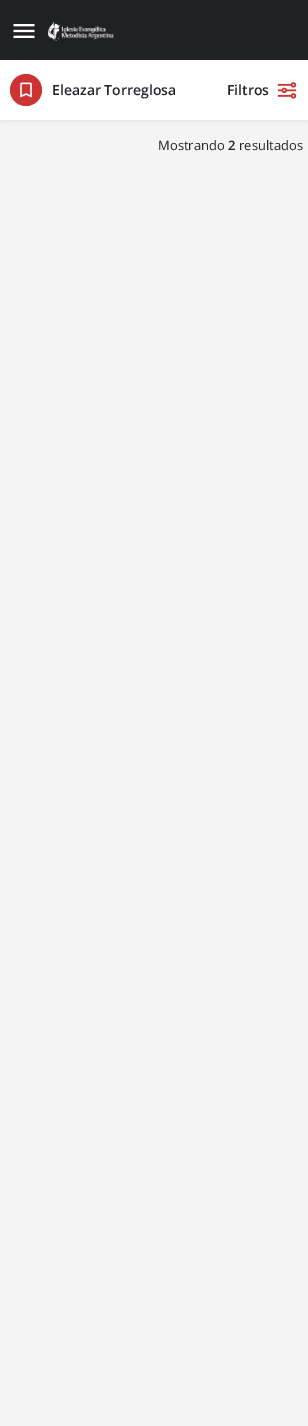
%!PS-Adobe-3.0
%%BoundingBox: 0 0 308 1426
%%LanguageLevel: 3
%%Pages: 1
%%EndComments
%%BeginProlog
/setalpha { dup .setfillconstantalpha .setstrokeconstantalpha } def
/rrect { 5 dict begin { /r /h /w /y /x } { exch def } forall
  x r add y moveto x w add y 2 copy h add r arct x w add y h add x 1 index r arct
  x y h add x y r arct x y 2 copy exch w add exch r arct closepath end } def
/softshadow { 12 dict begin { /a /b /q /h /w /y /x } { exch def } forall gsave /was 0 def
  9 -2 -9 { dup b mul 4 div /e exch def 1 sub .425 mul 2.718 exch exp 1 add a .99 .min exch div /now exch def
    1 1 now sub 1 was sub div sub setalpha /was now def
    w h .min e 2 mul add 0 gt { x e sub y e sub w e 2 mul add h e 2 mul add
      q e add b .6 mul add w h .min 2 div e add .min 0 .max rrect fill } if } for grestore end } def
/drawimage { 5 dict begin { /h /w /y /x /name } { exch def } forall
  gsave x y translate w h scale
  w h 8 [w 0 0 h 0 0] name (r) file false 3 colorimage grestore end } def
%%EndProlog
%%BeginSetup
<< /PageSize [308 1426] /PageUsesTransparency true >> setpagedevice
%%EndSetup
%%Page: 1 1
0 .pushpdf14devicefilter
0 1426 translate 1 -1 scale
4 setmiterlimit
0.957 setgray
0 0 308 1426 rectfill
0 setgray
0 61 308 60 0 2 0.07 softshadow
0.125 0.129 0.145 setrgbcolor
0 0 308 60 rectfill
(images/1.raw) 13 24 22 14 drawimage
(images/2.raw) 48 21 66 20 drawimage
1 setgray
0 60 308 60 rectfill
0.8 0.2 0.2 setrgbcolor
newpath 26 90 16 0 360 arc closepath fill
(images/3.raw) 20 82 12 16 drawimage
(images/4.raw) 277 82 20 17 drawimage
/OpenSans-SemiBold [14 0 0 -14 0 0] selectfont
0.141 0.141 0.161 setrgbcolor
52 95 moveto (Eleazar Torreglosa) show
227 95 moveto (Filtros) show
/OpenSans-Regular [13 0 0 -13 0 0] selectfont
158 150 moveto (Mostrando) show
/OpenSans-SemiBold [13 0 0 -13 0 0] selectfont
228 150 moveto (2) show
/OpenSans-Regular [13 0 0 -13 0 0] selectfont
239 150 moveto (resultados) show
.poppdf14devicefilter showpage
%%EOF
